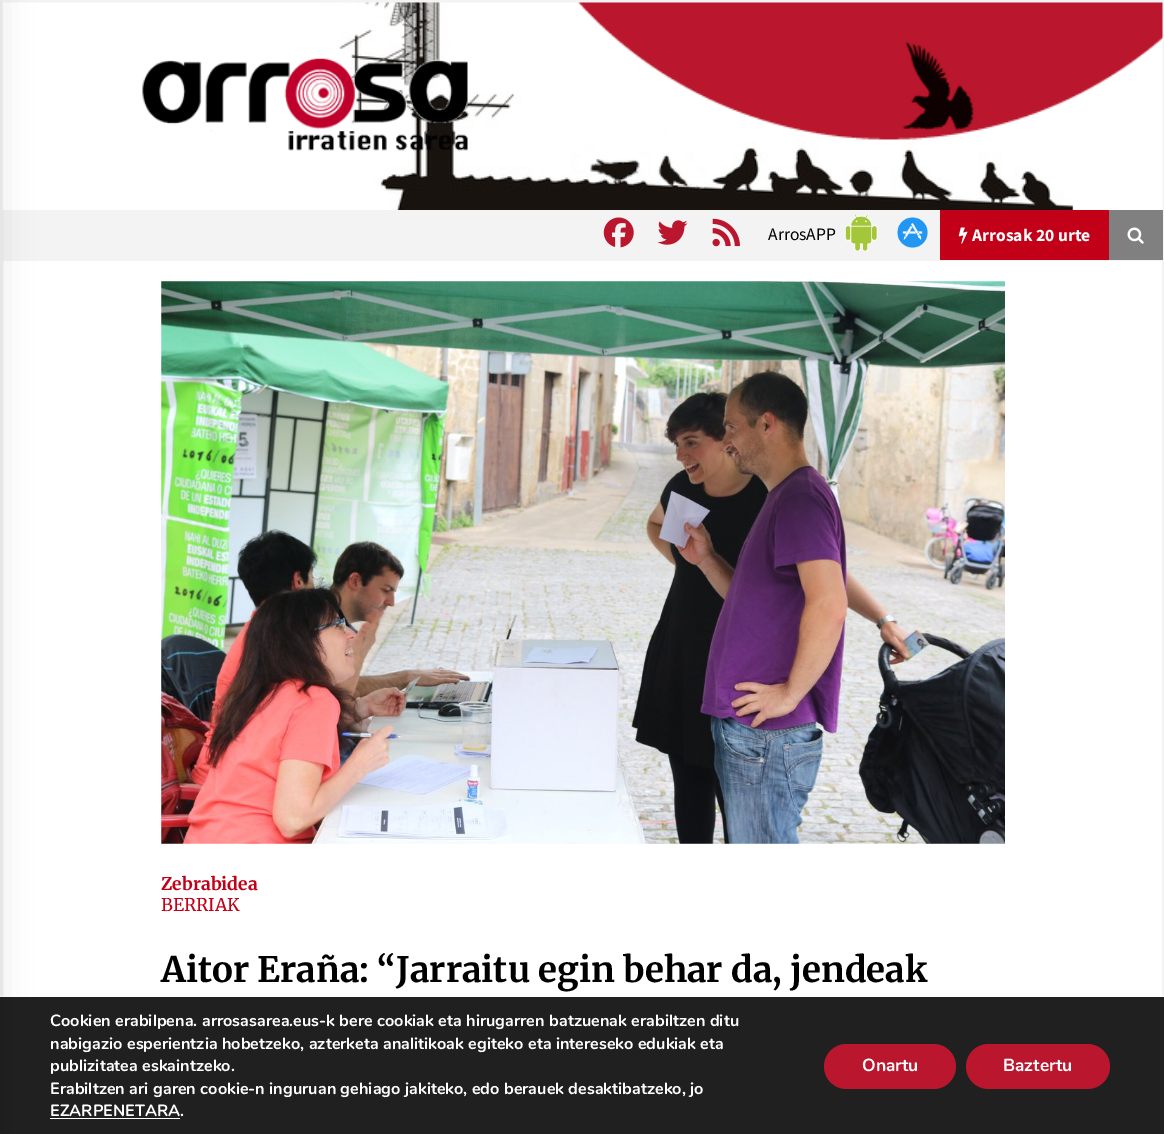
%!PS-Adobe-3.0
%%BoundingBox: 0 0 1164 1134
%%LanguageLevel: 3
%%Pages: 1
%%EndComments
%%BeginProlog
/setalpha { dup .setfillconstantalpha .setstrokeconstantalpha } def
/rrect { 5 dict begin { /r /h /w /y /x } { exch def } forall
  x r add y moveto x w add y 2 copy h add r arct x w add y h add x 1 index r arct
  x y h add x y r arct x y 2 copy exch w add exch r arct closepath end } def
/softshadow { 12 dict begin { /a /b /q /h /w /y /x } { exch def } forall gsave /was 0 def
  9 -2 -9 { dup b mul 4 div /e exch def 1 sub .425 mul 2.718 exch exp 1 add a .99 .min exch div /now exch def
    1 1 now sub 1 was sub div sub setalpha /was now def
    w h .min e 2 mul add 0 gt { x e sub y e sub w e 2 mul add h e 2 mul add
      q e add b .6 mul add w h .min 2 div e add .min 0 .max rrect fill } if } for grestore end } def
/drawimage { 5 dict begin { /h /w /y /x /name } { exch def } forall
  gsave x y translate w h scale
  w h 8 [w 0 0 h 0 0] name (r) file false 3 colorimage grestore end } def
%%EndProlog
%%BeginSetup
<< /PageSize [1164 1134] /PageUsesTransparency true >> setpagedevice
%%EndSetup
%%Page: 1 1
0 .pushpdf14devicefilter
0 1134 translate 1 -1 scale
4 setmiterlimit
1 setgray
0 0 1164 1134 rectfill
0.953 setgray
3 setlinewidth
1.5 1.5 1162 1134 rectstroke
(images/1.raw) 2 2 1161 208 drawimage
3 210 1159 51 rectfill
0.125 setgray
0 997 1164 137 rectfill
1 setgray
0 996 1164 1 rectfill
0 setgray
-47 0 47 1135 0 15.5 0.1 softshadow
(images/2.raw) 142 58 326 93 drawimage
(images/3.raw) 603 217 31 31 drawimage
(images/4.raw) 657 220 31 25 drawimage
(images/5.raw) 712 218 28 29 drawimage
(images/6.raw) 845 214 33 37 drawimage
(images/7.raw) 897 217 31 31 drawimage
0.761 0 0.09 setrgbcolor
940 210 169 50 rectfill
(images/8.raw) 958 227 10 17 drawimage
0.502 setgray
1109 210 54 50 rectfill
(images/9.raw) 1127 227 17 17 drawimage
(images/10.raw) 161 281 844 563 drawimage
1 setgray
50 1118 130 1 rectfill
0.729 0.09 0.18 setrgbcolor
824 1044 132 45 22.5 rrect fill
966 1044 144 45 22.5 rrect fill
/SourceSansPro-Regular [17.5 0 0 -17.5 0 0] selectfont
0 setgray
768 240 moveto (ArrosAPP) show
/SourceSansPro-Bold [17.5 0 0 -17.5 0 0] selectfont
1 setgray
972 241 moveto (Arrosak 20 urte) show
/Merriweather-Bold [17.5 0 0 -17.5 0 0] selectfont
0.761 0 0.09 setrgbcolor
161 890 moveto (Zebrabidea) show
/Merriweather-Regular [17.5 0 0 -17.5 0 0] selectfont
161 911 moveto (BERRIAK) show
/Merriweather-Bold [35 0 0 -35 0 0] selectfont
0 setgray
161 982 moveto (Aitor Eraña: “Jarraitu egin behar da, jendeak) show
/Nunito-Bold [16.25 0 0 -16.25 0 0] selectfont
1 setgray
50 1026 moveto (Cookien erabilpena. arrosasarea.eus-k bere cookiak eta hirugarren batzuenak erabiltzen ditu) show
50 1049 moveto (nabigazio esperientzia hobetzeko, azterketa analitikoak egiteko eta intereseko edukiak eta) show
50 1071 moveto (publizitatea eskaintzeko.) show
50 1094 moveto (Erabiltzen ari garen cookie-n inguruan gehiago jakiteko, edo berauek desaktibatzeko, jo) show
50 1116 moveto (EZARPENETARA.) show
/Nunito-Bold [17.5 0 0 -17.5 0 0] selectfont
862 1071 moveto (Onartu) show
1003 1071 moveto (Baztertu) show
.poppdf14devicefilter showpage
%%EOF
